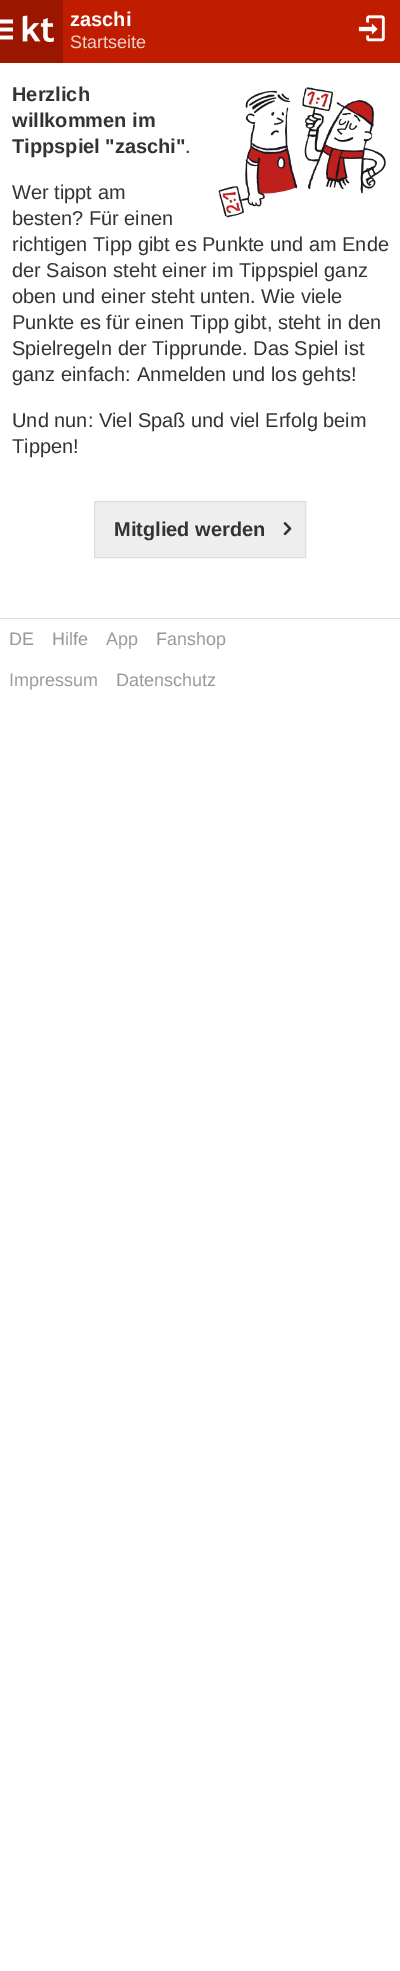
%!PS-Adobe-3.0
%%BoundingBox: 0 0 400 1971
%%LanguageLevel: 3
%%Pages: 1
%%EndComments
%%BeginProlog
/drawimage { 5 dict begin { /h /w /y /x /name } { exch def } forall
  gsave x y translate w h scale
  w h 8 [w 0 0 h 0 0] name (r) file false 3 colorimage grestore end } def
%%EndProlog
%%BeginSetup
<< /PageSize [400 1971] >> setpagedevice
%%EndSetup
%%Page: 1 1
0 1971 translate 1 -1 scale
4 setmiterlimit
1 setgray
0 0 400 1971 rectfill
0.753 0.11 0 setrgbcolor
63 0 337 63 rectfill
0.604 0.086 0 setrgbcolor
0 0 63 63 rectfill
(images/1.raw) 0 19 13 21 drawimage
(images/2.raw) 22 15 32 27 drawimage
(images/3.raw) 358 15 27 27 drawimage
(images/4.raw) 218 87 168 131 drawimage
0.933 setgray
newpath 94.5 501.5 moveto 305.5 501.5 lineto 305.5 557.5 lineto 94.5 557.5 lineto closepath gsave fill grestore
0.867 setgray
stroke
(images/5.raw) 283 522 9 14 drawimage
0 618 400 1 rectfill
/LiberationSans-Bold [20 0 0 -20 0 0] selectfont
1 setgray
70 26 moveto (zaschi) show
/LiberationSans-Regular [18 0 0 -18 0 0] selectfont
0.949 0.824 0.8 setrgbcolor
70 48 moveto (Startseite) show
/LiberationSans-Bold [20 0 0 -20 0 0] selectfont
0.2 setgray
12 101 moveto (Herzlich) show
12 127 moveto (willkommen im) show
12 153 moveto (Tippspiel "zaschi") show
/LiberationSans-Regular [20 0 0 -20 0 0] selectfont
185 153 moveto (.) show
12 199 moveto (Wer tippt am) show
12 225 moveto (besten? Für einen) show
12 251 moveto (richtigen Tipp gibt es Punkte und am Ende) show
12 277 moveto (der Saison steht einer im Tippspiel ganz) show
12 303 moveto (oben und einer steht unten. Wie viele) show
12 329 moveto (Punkte es für einen Tipp gibt, steht in den) show
12 355 moveto (Spielregeln der Tipprunde. Das Spiel ist) show
12 381 moveto (ganz einfach: Anmelden und los gehts!) show
12 427 moveto (Und nun: Viel Spaß und viel Erfolg beim) show
12 453 moveto (Tippen!) show
/LiberationSans-Bold [20 0 0 -20 0 0] selectfont
114 536 moveto (Mitglied werden) show
/LiberationSans-Regular [18 0 0 -18 0 0] selectfont
0.6 setgray
9 645 moveto (DE) show
52 645 moveto (Hilfe) show
106 645 moveto (App) show
156 645 moveto (Fanshop) show
9 686 moveto (Impressum) show
116 686 moveto (Datenschutz) show
showpage
%%EOF
